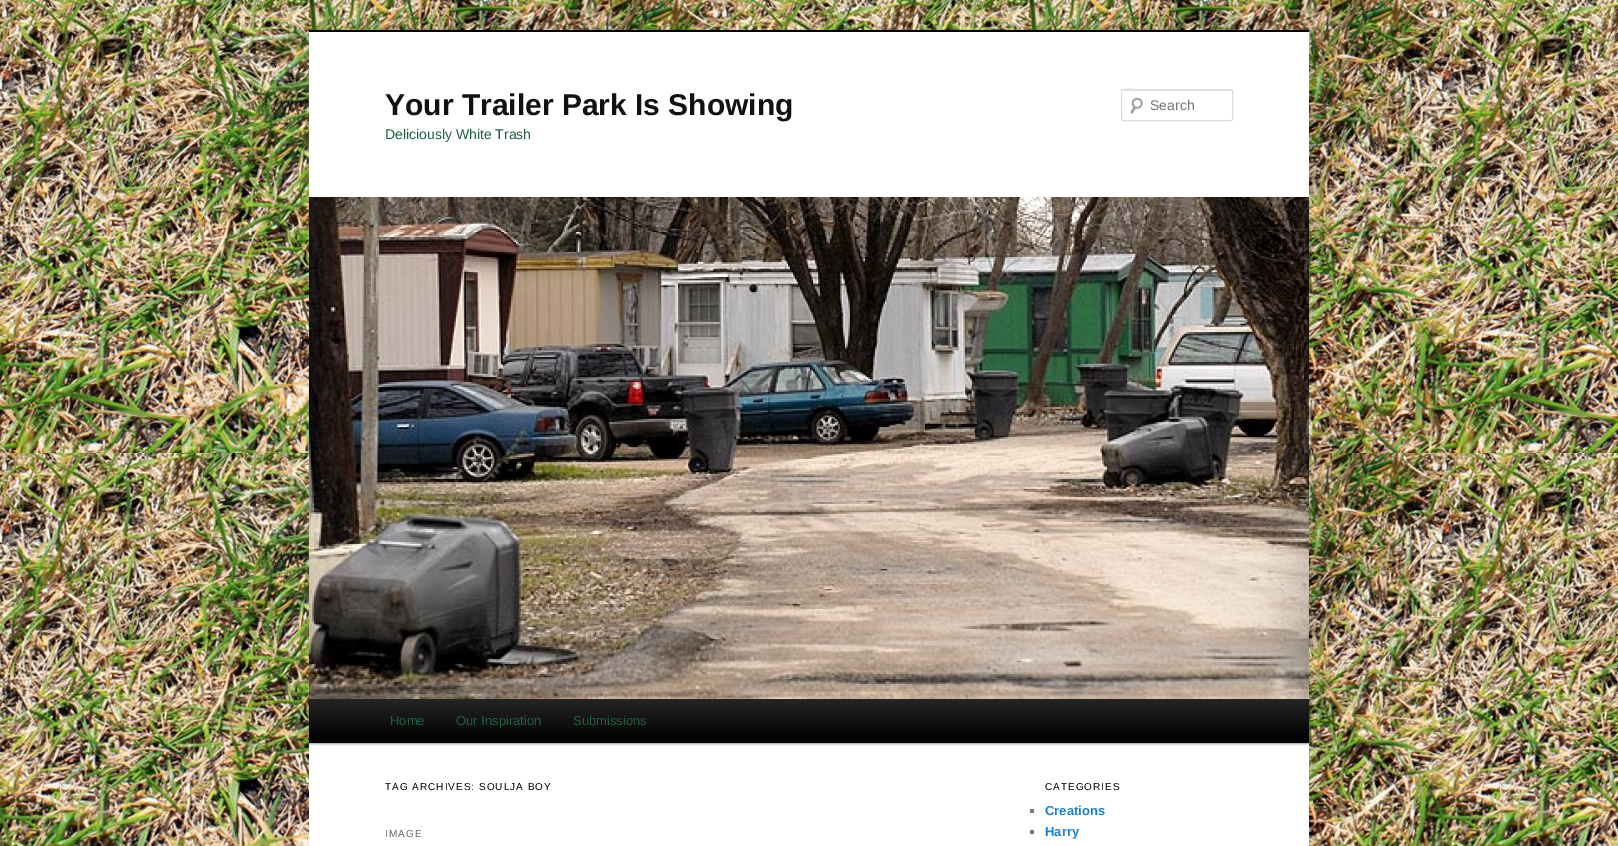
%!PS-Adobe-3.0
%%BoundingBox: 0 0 1618 846
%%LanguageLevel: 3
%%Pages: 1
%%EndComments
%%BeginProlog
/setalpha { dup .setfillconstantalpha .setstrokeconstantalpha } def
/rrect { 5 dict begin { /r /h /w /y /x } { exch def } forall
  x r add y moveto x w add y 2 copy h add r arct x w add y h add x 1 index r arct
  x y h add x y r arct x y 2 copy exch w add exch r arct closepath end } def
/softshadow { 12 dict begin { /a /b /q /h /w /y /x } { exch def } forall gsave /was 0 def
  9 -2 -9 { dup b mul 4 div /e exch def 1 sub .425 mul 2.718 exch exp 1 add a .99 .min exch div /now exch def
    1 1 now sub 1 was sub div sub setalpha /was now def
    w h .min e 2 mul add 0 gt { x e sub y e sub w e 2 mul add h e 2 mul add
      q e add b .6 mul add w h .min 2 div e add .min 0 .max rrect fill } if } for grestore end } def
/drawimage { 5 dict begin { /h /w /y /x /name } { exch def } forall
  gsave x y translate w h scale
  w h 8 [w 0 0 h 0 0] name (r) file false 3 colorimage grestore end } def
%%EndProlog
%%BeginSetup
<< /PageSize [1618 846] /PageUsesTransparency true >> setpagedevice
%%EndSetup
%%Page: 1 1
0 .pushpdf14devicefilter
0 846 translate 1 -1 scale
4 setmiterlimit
1 setgray
0 0 1618 846 rectfill
(images/1.raw) 0 0 1618 846 drawimage
309 32 1000 814 rectfill
0 setgray
309 30 1000 2 rectfill
(images/2.raw) 1130 97 13 17 drawimage
0.902 setgray
newpath 1123 91 moveto 1232 91 lineto 1232 92 lineto 1231 90 lineto 1141 90 lineto 1137 90 1122 85 1122 92 curveto 1122 91 1122 91 1123 91 curveto closepath fill
0.867 setgray
1121.5 89.5 111 31 1.5 rrect stroke
0 setgray
309 700 1000 44 0 1 0.4 softshadow
(images/3.raw) 309 197 1000 502 drawimage
gsave newpath 309 699 moveto 1309 699 lineto 1309 742 lineto 309 742 lineto closepath clip newpath
<< /ShadingType 2 /ColorSpace /DeviceRGB /Coords [809 699 809 742] /Extend [true true] /Function << /FunctionType 2 /Domain [0 1] /C0 [0.145 0.145 0.145] /C1 [0 0 0] /N 1 >> >> shfill grestore
309 742 1000 1 rectfill
0.467 setgray
1030 809 4 4 rectfill
1030 830 4 4 rectfill
/LiberationSans-Bold [30 0 0 -30 0 0] selectfont
0.067 setgray
385 115 moveto (Your Trailer Park Is Showing) show
/LiberationSans-Regular [14 0 0 -14 0 0] selectfont
0.125 0.376 0.251 setrgbcolor
385 139 moveto (Deliciously White Trash) show
0.459 setgray
1150 110 moveto (Search) show
/LiberationSans-Regular [13 0 0 -13 0 0] selectfont
0.125 0.376 0.251 setrgbcolor
390 725 moveto (Home) show
456 725 moveto (Our Inspiration) show
573 725 moveto (Submissions) show
/LiberationSans-Regular [10 0 0 -10 0 0] selectfont
0 setgray
385 790 moveto 1 0 (TAG ARCHIVES: SOULJA BOY) ashow
0.4 setgray
385 837 moveto 1 0 (IMAGE) ashow
0 setgray
1045 790 moveto 1 0 (CATEGORIES) ashow
/LiberationSans-Bold [13 0 0 -13 0 0] selectfont
0.098 0.51 0.82 setrgbcolor
1045 815 moveto (Creations) show
1045 836 moveto (Harry) show
.poppdf14devicefilter showpage
%%EOF
